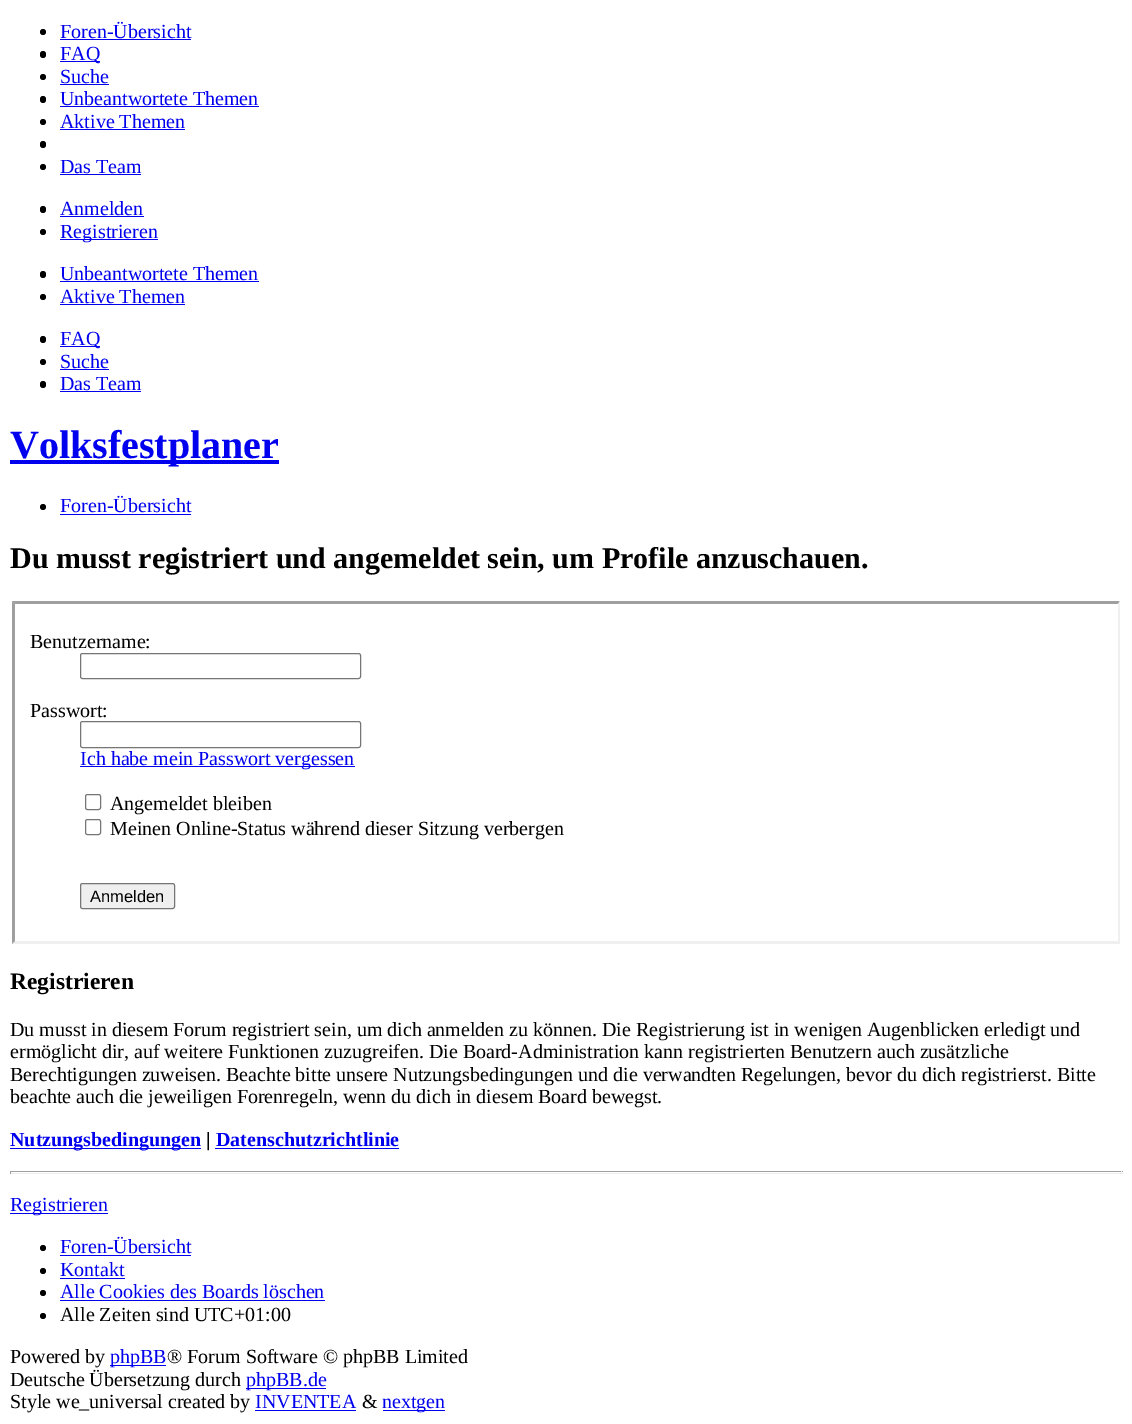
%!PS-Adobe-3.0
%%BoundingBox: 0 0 1132 1424
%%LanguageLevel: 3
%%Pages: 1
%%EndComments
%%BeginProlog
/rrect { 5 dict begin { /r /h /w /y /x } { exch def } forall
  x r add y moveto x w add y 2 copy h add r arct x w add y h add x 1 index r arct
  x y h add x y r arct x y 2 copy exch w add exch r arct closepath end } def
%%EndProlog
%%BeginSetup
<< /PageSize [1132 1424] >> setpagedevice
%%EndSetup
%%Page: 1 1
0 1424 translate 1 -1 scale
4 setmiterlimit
1 setgray
0 0 1132 1424 rectfill
0 setgray
newpath 43 32 3 0 360 arc closepath fill
0 0 0.933 setrgbcolor
60 39 131 1 rectfill
0 setgray
40 51 6 7 3 rrect fill
0 0 0.933 setrgbcolor
60 61 40 1 rectfill
0 setgray
newpath 43 77 3 0 360 arc closepath fill
0 0 0.933 setrgbcolor
60 84 49 1 rectfill
0 setgray
40 96 6 7 3 rrect fill
0 0 0.933 setrgbcolor
60 106 199 1 rectfill
0 setgray
newpath 43 122 3 0 360 arc closepath fill
0 0 0.933 setrgbcolor
60 129 125 1 rectfill
0 setgray
40 141 6 7 3 rrect fill
newpath 43 167 3 0 360 arc closepath fill
0 0 0.933 setrgbcolor
60 174 81 1 rectfill
0 setgray
40 206 6 7 3 rrect fill
0 0 0.933 setrgbcolor
60 216 84 1 rectfill
0 setgray
newpath 43 232 3 0 360 arc closepath fill
0 0 0.933 setrgbcolor
60 239 98 1 rectfill
0 setgray
40 271 6 7 3 rrect fill
0 0 0.933 setrgbcolor
60 281 199 1 rectfill
0 setgray
newpath 43 297 3 0 360 arc closepath fill
0 0 0.933 setrgbcolor
60 304 125 1 rectfill
0 setgray
40 336 6 7 3 rrect fill
0 0 0.933 setrgbcolor
60 346 40 1 rectfill
0 setgray
newpath 43 362 3 0 360 arc closepath fill
0 0 0.933 setrgbcolor
60 369 49 1 rectfill
0 setgray
40 381 6 7 3 rrect fill
0 0 0.933 setrgbcolor
60 391 81 1 rectfill
10 460 269 4 rectfill
0 setgray
newpath 43 507 3 0 360 arc closepath fill
0 0 0.933 setrgbcolor
60 514 131 1 rectfill
0.624 setgray
newpath 12 601 moveto 1120 601 lineto 1118 604 lineto 15 604 lineto closepath fill
0.937 setgray
newpath 1120 601 moveto 1120 944 lineto 1118 941 lineto 1118 604 lineto closepath fill
newpath 1120 944 moveto 12 944 lineto 15 941 lineto 1118 941 lineto closepath fill
0.624 setgray
newpath 12 944 moveto 12 601 lineto 15 604 lineto 15 941 lineto closepath fill
0.463 setgray
80.5 653.5 280 25 2 rrect stroke
80.5 721.5 280 26 2 rrect stroke
0 0 0.933 setrgbcolor
80 766 275 1 rectfill
0.463 setgray
85.5 794.5 15 15 2 rrect stroke
85.5 819.5 15 15 2 rrect stroke
0.937 setgray
80.5 883.5 94 25 2 rrect gsave fill grestore
0.463 setgray
stroke
0 0 0.933 setrgbcolor
10 1148 191 1 rectfill
215 1148 184 1 rectfill
0.624 setgray
10 1171 1113 1 rectfill
0.933 setgray
1121 1171 1 3 rectfill
10 1173 1113 1 rectfill
0.624 setgray
10 1171 1 3 rectfill
0 0 0.933 setrgbcolor
10 1213 98 1 rectfill
0 setgray
newpath 43 1248 3 0 360 arc closepath fill
0 0 0.933 setrgbcolor
60 1255 131 1 rectfill
0 setgray
newpath 43 1271 3 0 360 arc closepath fill
0 0 0.933 setrgbcolor
60 1278 65 1 rectfill
0 setgray
newpath 43 1293 3 0 360 arc closepath fill
0 0 0.933 setrgbcolor
60 1300 265 1 rectfill
0 setgray
newpath 43 1316 3 0 360 arc closepath fill
0 0 0.933 setrgbcolor
110 1365 56 1 rectfill
246 1388 80 1 rectfill
255 1410 101 1 rectfill
383 1410 62 1 rectfill
/LiberationSerif-Regular [20 0 0 -20 0 0] selectfont
60 38 moveto (Foren-Übersicht) show
60 60 moveto (FAQ) show
60 83 moveto (Suche) show
60 105 moveto (Unbeantwortete Themen) show
60 128 moveto (Aktive Themen) show
60 173 moveto (Das Team) show
60 215 moveto (Anmelden) show
60 238 moveto (Registrieren) show
60 280 moveto (Unbeantwortete Themen) show
60 303 moveto (Aktive Themen) show
60 345 moveto (FAQ) show
60 368 moveto (Suche) show
60 390 moveto (Das Team) show
/LiberationSerif-Bold [40 0 0 -40 0 0] selectfont
10 458 moveto (Volksfestplaner) show
/LiberationSerif-Regular [20 0 0 -20 0 0] selectfont
60 512 moveto (Foren-Übersicht) show
/LiberationSerif-Bold [30 0 0 -30 0 0] selectfont
0 setgray
10 568 moveto (Du musst registriert und angemeldet sein, um Profile anzuschauen.) show
/LiberationSerif-Regular [20 0 0 -20 0 0] selectfont
30 648 moveto (Benutzername:) show
30 717 moveto (Passwort:) show
0 0 0.933 setrgbcolor
80 765 moveto (Ich habe mein Passwort vergessen) show
0 setgray
110 810 moveto (Angemeldet bleiben) show
110 835 moveto (Meinen Online-Status während dieser Sitzung verbergen) show
/LiberationSans-Regular [16.5 0 0 -16.5 0 0] selectfont
90 902 moveto (Anmelden) show
/LiberationSerif-Bold [23.5 0 0 -23.5 0 0] selectfont
10 989 moveto (Registrieren) show
/LiberationSerif-Regular [20 0 0 -20 0 0] selectfont
10 1036 moveto (Du musst in diesem Forum registriert sein, um dich anmelden zu können. Die Registrierung ist in wenigen Augenblicken erledigt und) show
10 1058 moveto (ermöglicht dir, auf weitere Funktionen zuzugreifen. Die Board-Administration kann registrierten Benutzern auch zusätzliche) show
10 1081 moveto (Berechtigungen zuweisen. Beachte bitte unsere Nutzungsbedingungen und die verwandten Regelungen, bevor du dich registrierst. Bitte) show
10 1103 moveto (beachte auch die jeweiligen Forenregeln, wenn du dich in diesem Board bewegst.) show
/LiberationSerif-Bold [20 0 0 -20 0 0] selectfont
0 0 0.933 setrgbcolor
10 1146 moveto (Nutzungsbedingungen) show
0 setgray
206 1146 moveto (|) show
0 0 0.933 setrgbcolor
216 1146 moveto (Datenschutzrichtlinie) show
/LiberationSerif-Regular [20 0 0 -20 0 0] selectfont
10 1211 moveto (Registrieren) show
60 1253 moveto (Foren-Übersicht) show
60 1276 moveto (Kontakt) show
60 1298 moveto (Alle Cookies des Boards löschen) show
0 setgray
60 1321 moveto (Alle Zeiten sind UTC+01:00) show
10 1363 moveto (Powered by) show
0 0 0.933 setrgbcolor
110 1363 moveto (phpBB) show
0 setgray
167 1363 moveto (® Forum Software © phpBB Limited) show
10 1386 moveto (Deutsche Übersetzung durch) show
0 0 0.933 setrgbcolor
246 1386 moveto (phpBB.de) show
0 setgray
10 1408 moveto (Style we_universal created by) show
0 0 0.933 setrgbcolor
255 1408 moveto (INVENTEA) show
0 setgray
362 1408 moveto (&) show
0 0 0.933 setrgbcolor
382 1408 moveto (nextgen) show
showpage
%%EOF
